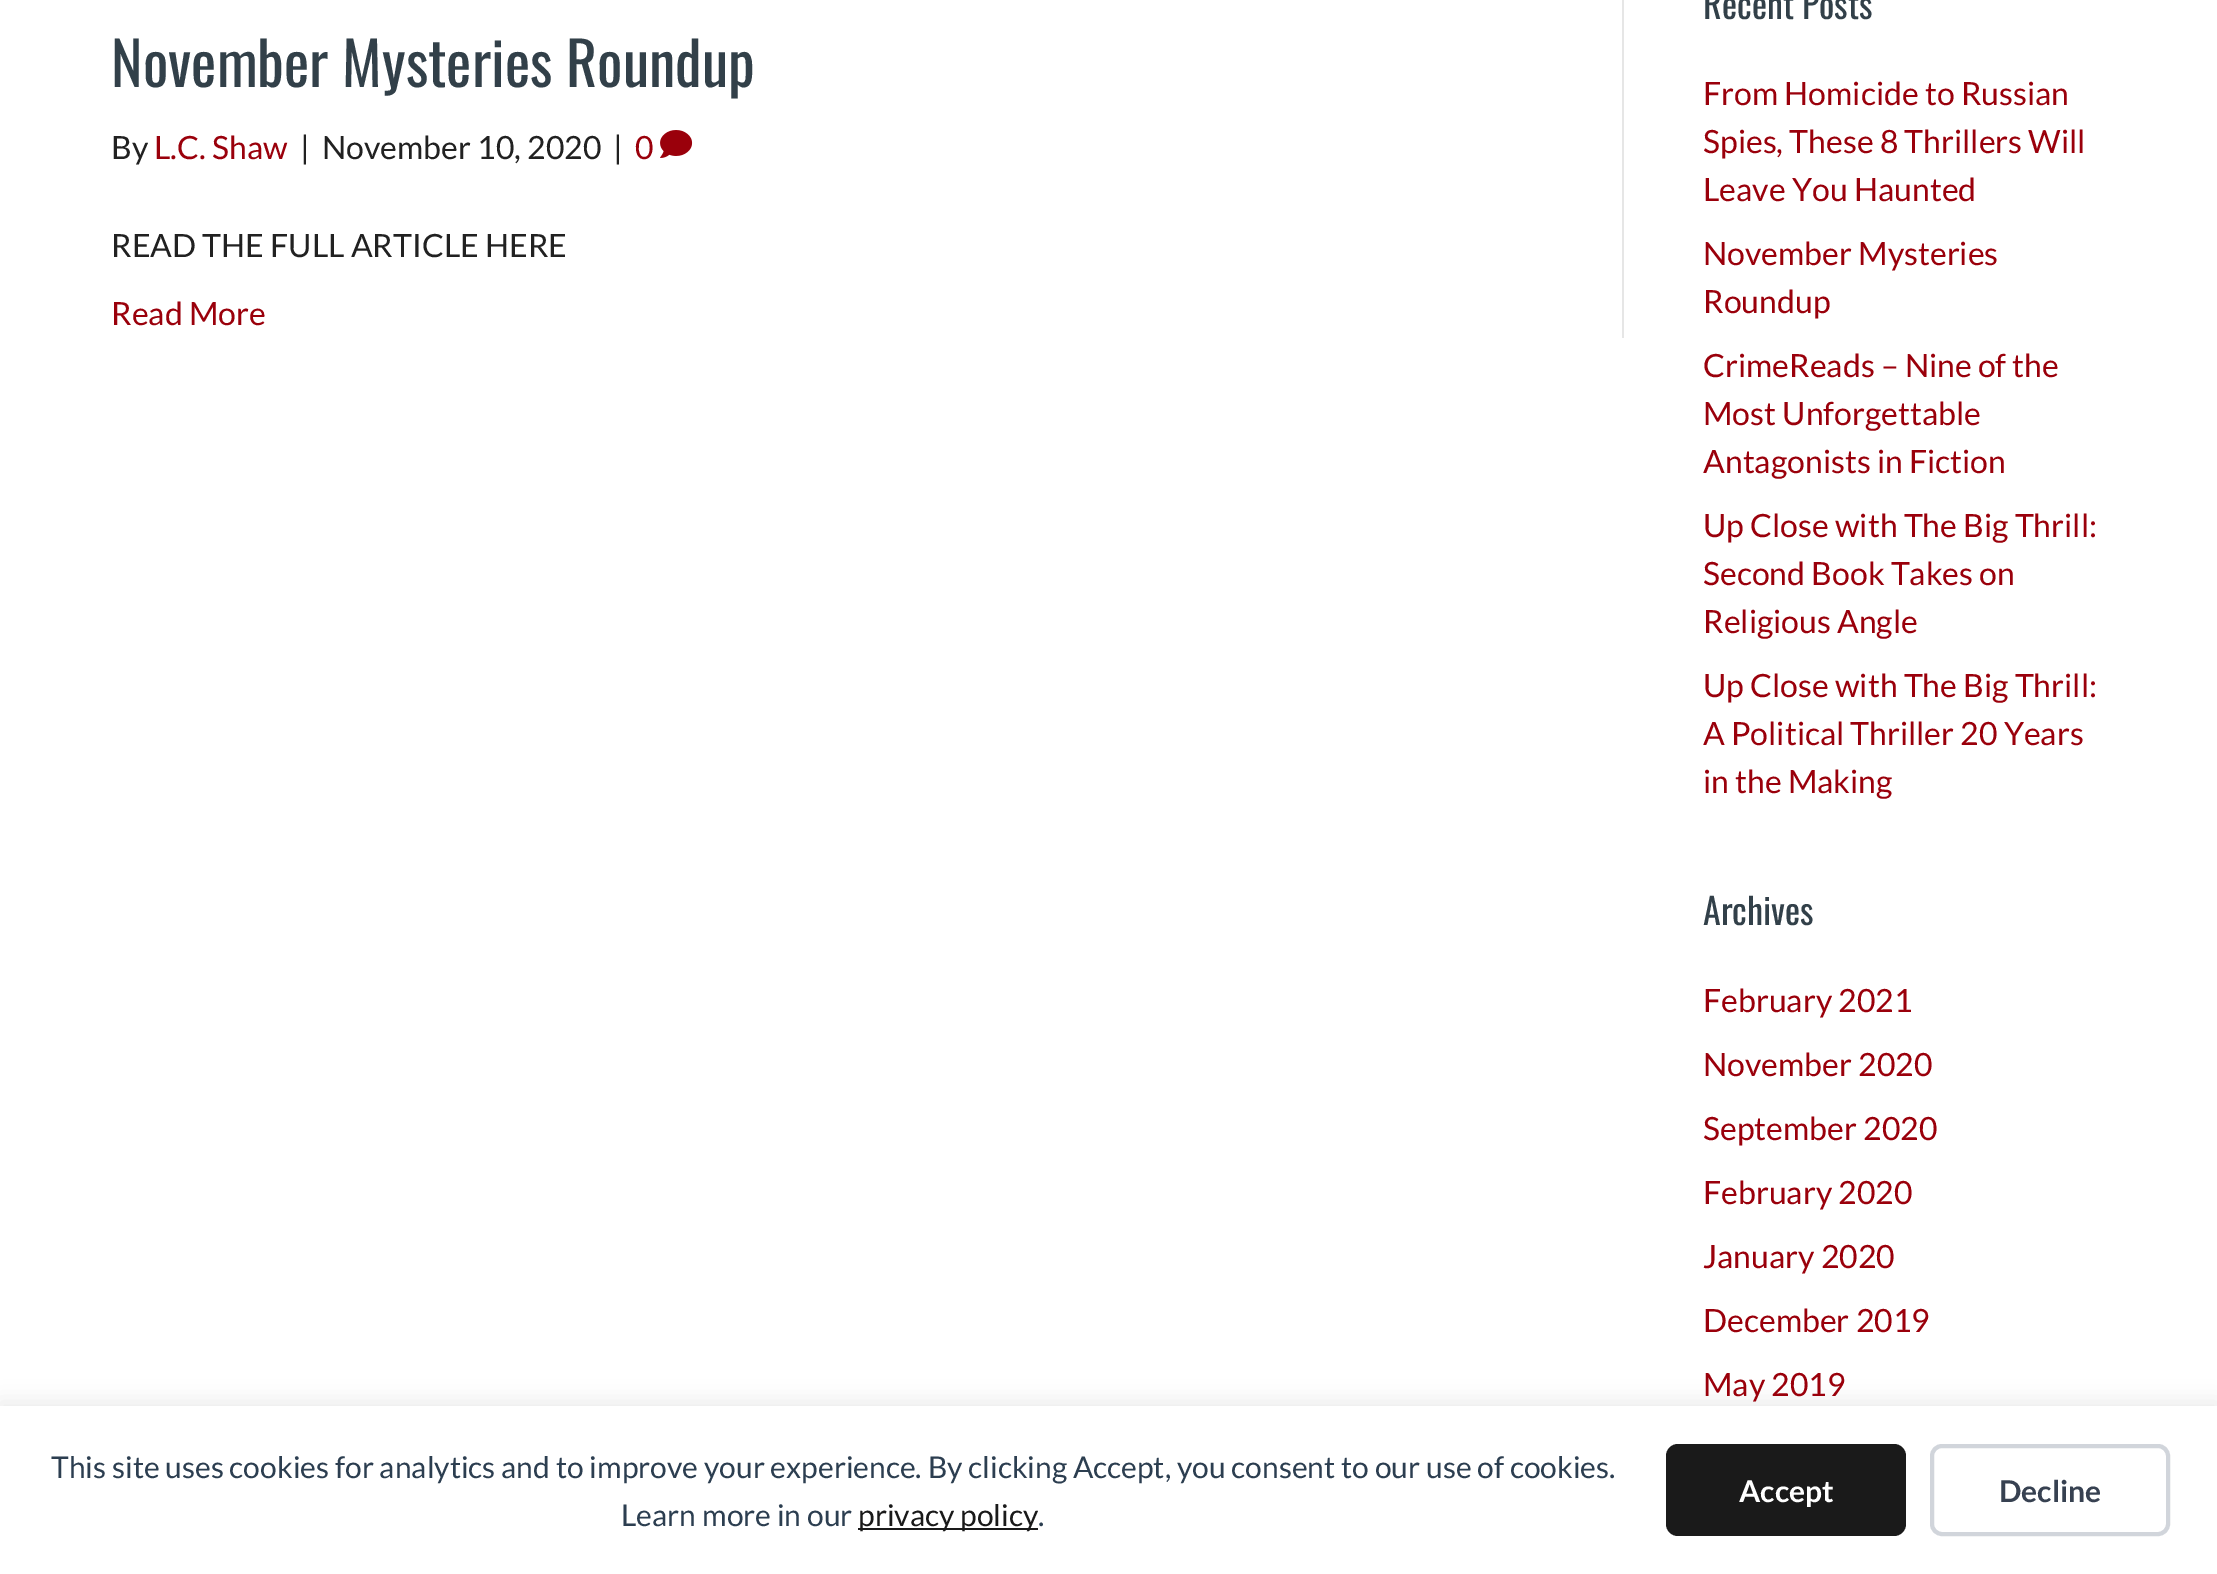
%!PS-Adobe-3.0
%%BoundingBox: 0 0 2217 1574
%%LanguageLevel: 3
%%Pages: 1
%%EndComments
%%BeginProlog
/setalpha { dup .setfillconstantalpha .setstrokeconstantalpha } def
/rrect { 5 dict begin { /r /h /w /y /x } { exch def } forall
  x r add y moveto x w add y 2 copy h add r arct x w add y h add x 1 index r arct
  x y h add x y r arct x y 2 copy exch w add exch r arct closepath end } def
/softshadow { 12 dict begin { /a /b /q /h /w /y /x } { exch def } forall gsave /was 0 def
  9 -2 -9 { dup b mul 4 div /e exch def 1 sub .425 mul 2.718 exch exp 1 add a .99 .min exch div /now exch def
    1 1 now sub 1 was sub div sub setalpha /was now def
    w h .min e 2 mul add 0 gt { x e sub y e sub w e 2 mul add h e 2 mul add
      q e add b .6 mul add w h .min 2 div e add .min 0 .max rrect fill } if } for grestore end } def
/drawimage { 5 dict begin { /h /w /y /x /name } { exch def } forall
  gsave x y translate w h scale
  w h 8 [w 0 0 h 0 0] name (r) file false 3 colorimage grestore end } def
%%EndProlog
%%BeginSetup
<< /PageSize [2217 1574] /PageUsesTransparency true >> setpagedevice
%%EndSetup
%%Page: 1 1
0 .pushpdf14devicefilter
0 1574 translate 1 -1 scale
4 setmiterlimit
1 setgray
0 0 2217 1574 rectfill
0.902 setgray
1622 0 2 338 rectfill
(images/1.raw) 660 130 33 28 drawimage
0 setgray
0 1402 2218 168 0 10 0.08 softshadow
1 setgray
0 1406 2217 168 rectfill
0.102 setgray
858 1528 180 2 rectfill
1666 1444 240 92 12 rrect fill
0.82 0.835 0.859 setrgbcolor
4 setlinewidth
1932 1446 236 88 10 rrect stroke
/Oswald-Regular [60 0 0 -60 0 0] selectfont
0.196 0.251 0.286 setrgbcolor
111 87 moveto (November Mysteries Roundup) show
/Lato-Regular [32 0 0 -32 0 0] selectfont
0.129 setgray
111 159 moveto (By) show
0.604 0 0.043 setrgbcolor
154 159 moveto (L.C. Shaw) show
0.129 setgray
300 159 moveto (|) show
322 159 moveto (November 10, 2020) show
613 159 moveto (|) show
0.604 0 0.043 setrgbcolor
635 159 moveto (0) show
0.129 setgray
111 257 moveto (READ THE FULL ARTICLE HERE) show
0.604 0 0.043 setrgbcolor
111 325 moveto (Read More) show
/Oswald-Regular [36 0 0 -36 0 0] selectfont
0.196 0.251 0.286 setrgbcolor
1703 19 moveto (Recent Posts) show
/Lato-Regular [32 0 0 -32 0 0] selectfont
0.604 0 0.043 setrgbcolor
1703 105 moveto (From Homicide to Russian) show
1703 153 moveto (Spies, These 8 Thrillers Will) show
1703 201 moveto (Leave You Haunted) show
1703 265 moveto (November Mysteries) show
1703 313 moveto (Roundup) show
1703 377 moveto (CrimeReads – Nine of the) show
1703 425 moveto (Most Unforgettable) show
1703 473 moveto (Antagonists in Fiction) show
1703 537 moveto (Up Close with The Big Thrill:) show
1703 585 moveto (Second Book Takes on) show
1703 633 moveto (Religious Angle) show
1703 697 moveto (Up Close with The Big Thrill:) show
1703 745 moveto (A Political Thriller 20 Years) show
1703 793 moveto (in the Making) show
/Oswald-Regular [36 0 0 -36 0 0] selectfont
0.196 0.251 0.286 setrgbcolor
1703 925 moveto (Archives) show
/Lato-Regular [32 0 0 -32 0 0] selectfont
0.604 0 0.043 setrgbcolor
1703 1012 moveto (February 2021) show
1703 1076 moveto (November 2020) show
1703 1140 moveto (September 2020) show
1703 1204 moveto (February 2020) show
1703 1268 moveto (January 2020) show
1703 1332 moveto (December 2019) show
1703 1396 moveto (May 2019) show
/Lato-Regular [30 0 0 -30 0 0] selectfont
0.173 0.243 0.314 setrgbcolor
51 1478 moveto (This site uses cookies for analytics and to improve your experience. By clicking Accept, you consent to our use of cookies.) show
621 1526 moveto (Learn more in our) show
0.102 setgray
858 1526 moveto (privacy policy) show
0.173 0.243 0.314 setrgbcolor
1038 1526 moveto (.) show
/Lato-Bold [30 0 0 -30 0 0] selectfont
1 setgray
1739 1502 moveto (Accept) show
0.216 0.255 0.318 setrgbcolor
1999 1502 moveto (Decline) show
.poppdf14devicefilter showpage
%%EOF
